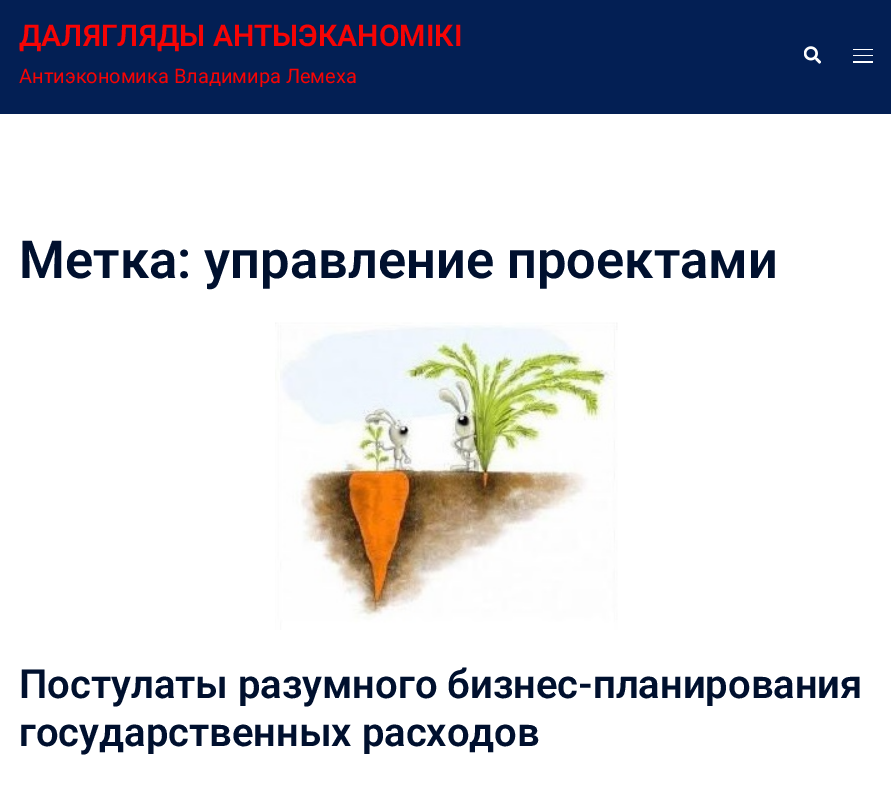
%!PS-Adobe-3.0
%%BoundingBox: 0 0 891 796
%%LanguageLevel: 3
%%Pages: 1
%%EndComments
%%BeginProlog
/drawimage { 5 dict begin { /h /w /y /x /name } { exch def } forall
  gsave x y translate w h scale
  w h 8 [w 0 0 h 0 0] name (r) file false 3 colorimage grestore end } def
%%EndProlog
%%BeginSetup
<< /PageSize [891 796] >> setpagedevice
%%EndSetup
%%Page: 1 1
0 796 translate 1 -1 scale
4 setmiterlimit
1 setgray
0 0 891 796 rectfill
0.012 0.122 0.329 setrgbcolor
0 0 891 114 rectfill
(images/1.raw) 804 46 17 18 drawimage
1 setgray
853 49 20 1 rectfill
853 55 20 1 rectfill
853 61 20 2 rectfill
(images/2.raw) 275 322 343 308 drawimage
/Roboto-SemiBold [30 0 0 -30 0 0] selectfont
0.965 0.016 0.016 setrgbcolor
19 46 moveto (ДАЛЯГЛЯДЫ АНТЫЭКАНОМІКІ) show
/Roboto-Regular [20 0 0 -20 0 0] selectfont
19 83 moveto (Антиэкономика Владимира Лемеха) show
/Roboto-SemiBold [52.5 0 0 -52.5 0 0] selectfont
0 0.063 0.18 setrgbcolor
19 278 moveto (Метка: управление проектами) show
/Roboto-SemiBold [40 0 0 -40 0 0] selectfont
19 698 moveto (Постулаты разумного бизнес-планирования) show
19 746 moveto (государственных расходов) show
showpage
%%EOF
